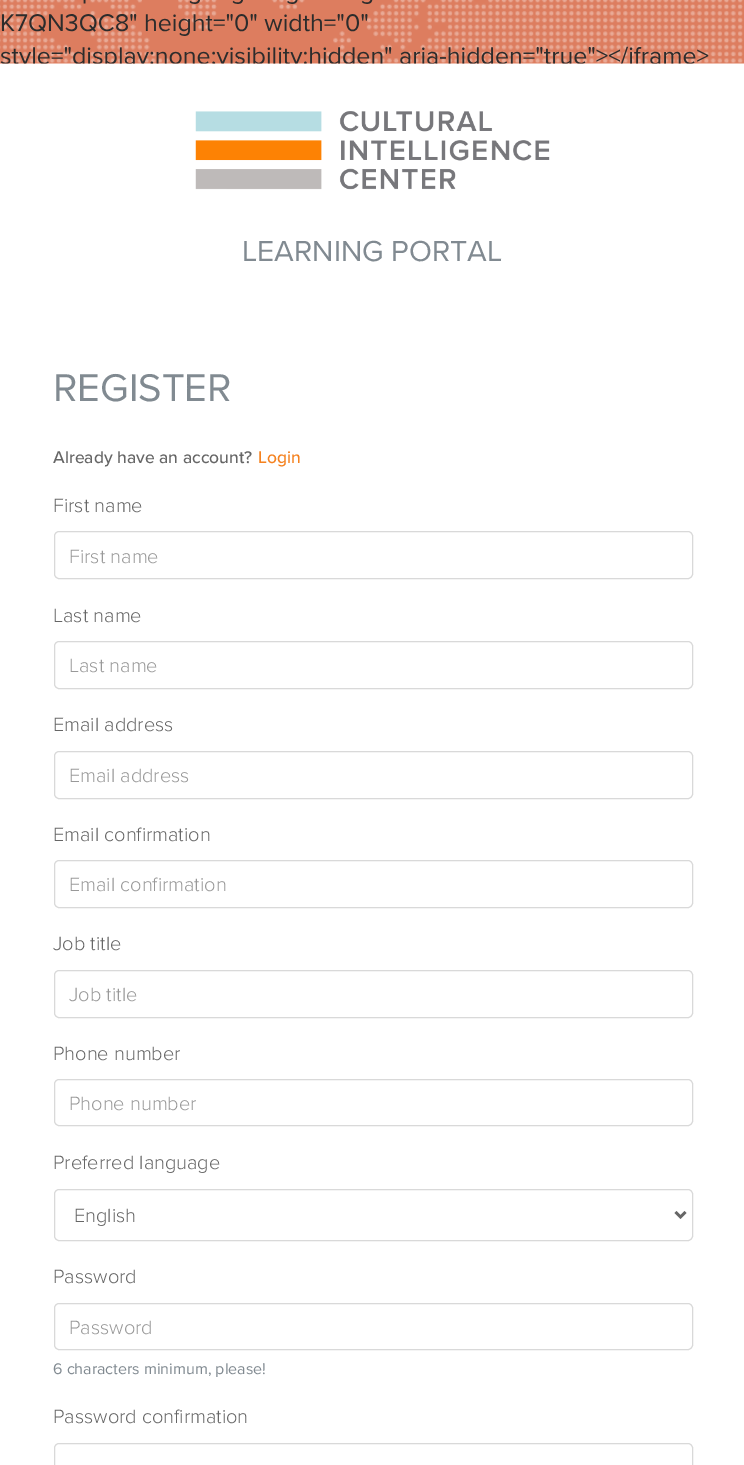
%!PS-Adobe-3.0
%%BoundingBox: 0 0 744 1465
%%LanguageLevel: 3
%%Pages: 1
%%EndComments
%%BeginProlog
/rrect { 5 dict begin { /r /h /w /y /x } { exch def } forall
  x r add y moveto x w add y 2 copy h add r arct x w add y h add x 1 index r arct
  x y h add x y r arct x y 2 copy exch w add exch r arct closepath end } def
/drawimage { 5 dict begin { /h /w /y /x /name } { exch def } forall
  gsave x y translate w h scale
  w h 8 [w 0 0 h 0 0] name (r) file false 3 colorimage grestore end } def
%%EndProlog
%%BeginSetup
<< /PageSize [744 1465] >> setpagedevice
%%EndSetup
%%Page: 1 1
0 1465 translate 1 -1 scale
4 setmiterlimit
1 setgray
0 0 744 1465 rectfill
(images/1.raw) 0 0 744 64 drawimage
(images/2.raw) 195 111 355 79 drawimage
0.851 setgray
54.5 531.5 638 47 4.5 rrect stroke
54.5 641.5 638 47 4.5 rrect stroke
54.5 751.5 638 47 4.5 rrect stroke
54.5 860.5 638 47 4.5 rrect stroke
54.5 970.5 638 47 4.5 rrect stroke
54.5 1079.5 638 46 4.5 rrect stroke
54.5 1189.5 638 51 4.5 rrect stroke
0.4 setgray
2.5 setlinewidth
newpath 675.5 1212 moveto 680.5 1217 lineto 685.5 1212 lineto stroke
0.851 setgray
1 setlinewidth
54.5 1303.5 638 46 4.5 rrect stroke
54.5 1443.5 638 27 4.5 rrect stroke
/ProximaNova-Regular [30 0 0 -30 0 0] selectfont
0.506 0.541 0.569 setrgbcolor
242 261 moveto (LEARNING PORTAL) show
/ProximaNova-Regular [40 0 0 -40 0 0] selectfont
53 401 moveto (REGISTER) show
/ProximaNova-Medium [17.5 0 0 -17.5 0 0] selectfont
0.4 setgray
53 463 moveto (Already have an account?) show
0.961 0.51 0.125 setrgbcolor
258 463 moveto (Login) show
/ProximaNova-Light [20 0 0 -20 0 0] selectfont
0.4 setgray
53 512 moveto (First name) show
0.6 setgray
69 563 moveto (First name) show
0.4 setgray
53 622 moveto (Last name) show
0.6 setgray
69 672 moveto (Last name) show
0.4 setgray
53 731 moveto (Email address) show
0.6 setgray
69 782 moveto (Email address) show
0.4 setgray
53 841 moveto (Email confirmation) show
0.6 setgray
69 891 moveto (Email confirmation) show
0.4 setgray
53 950 moveto (Job title) show
0.6 setgray
69 1001 moveto (Job title) show
0.4 setgray
53 1060 moveto (Phone number) show
0.6 setgray
69 1110 moveto (Phone number) show
0.4 setgray
53 1169 moveto (Preferred language) show
74 1222 moveto (English) show
53 1283 moveto (Password) show
0.6 setgray
69 1334 moveto (Password) show
/ProximaNova-Regular [16 0 0 -16 0 0] selectfont
0.506 0.541 0.569 setrgbcolor
53 1374 moveto (6 characters minimum, please!) show
/ProximaNova-Light [20 0 0 -20 0 0] selectfont
0.4 setgray
53 1423 moveto (Password confirmation) show
showpage
%%EOF
